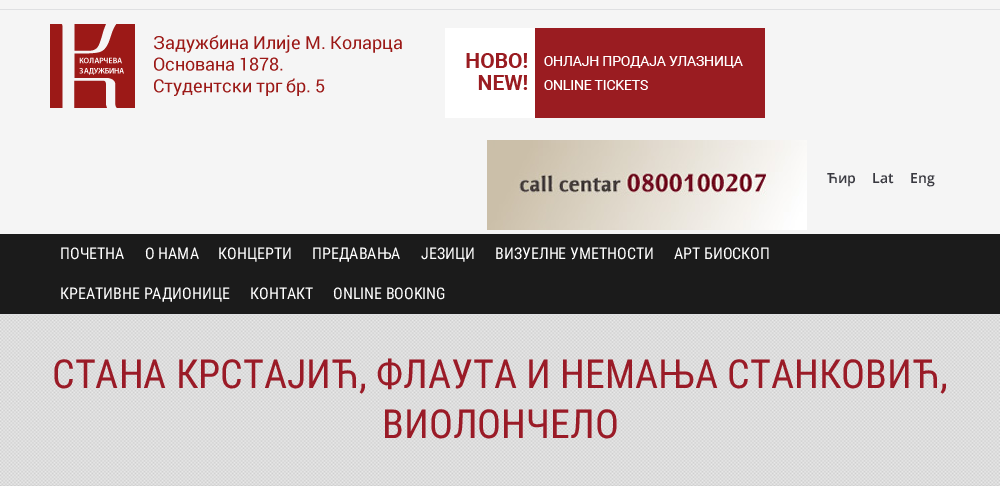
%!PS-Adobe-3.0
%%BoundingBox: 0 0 1000 486
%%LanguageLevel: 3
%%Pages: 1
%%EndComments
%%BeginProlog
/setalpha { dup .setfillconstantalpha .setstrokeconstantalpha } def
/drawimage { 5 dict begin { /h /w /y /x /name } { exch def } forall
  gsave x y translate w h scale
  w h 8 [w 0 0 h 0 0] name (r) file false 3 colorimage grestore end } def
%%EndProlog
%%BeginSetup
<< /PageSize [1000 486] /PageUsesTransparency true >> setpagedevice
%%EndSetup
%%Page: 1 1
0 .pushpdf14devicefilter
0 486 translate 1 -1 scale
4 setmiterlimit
1 setgray
0 0 1000 486 rectfill
(images/1.raw) 0 315 1000 171 drawimage
0.961 setgray
0 0 1000 234 rectfill
0.875 0.878 0.886 setrgbcolor
0 314 1000 1 rectfill
0 9 1000 1 rectfill
(images/2.raw) 50 24 352 84 drawimage
(images/3.raw) 445 28 320 90 drawimage
(images/4.raw) 487 140 320 90 drawimage
0.106 setgray
0 234 1000 80 rectfill
0.5 setalpha
0.886 setgray
0 315 1000 170 rectfill
/OpenSans-SemiBold [14 0 0 -14 0 0] selectfont
1 setalpha
0.224 0.224 0.251 setrgbcolor
827 183 moveto (Ћир) show
872 183 moveto (Lat) show
910 183 moveto (Eng) show
/RobotoCondensed-Regular [16 0 0 -16 0 0] selectfont
1 setgray
60 259 moveto (ПОЧЕТНА) show
145 259 moveto (О НАМА) show
218 259 moveto (КОНЦЕРТИ) show
312 259 moveto (ПРЕДАВАЊА) show
421 259 moveto (ЈЕЗИЦИ) show
495 259 moveto (ВИЗУЕЛНЕ УМЕТНОСТИ) show
674 259 moveto (АРТ БИОСКОП) show
60 299 moveto (КРЕАТИВНЕ РАДИОНИЦЕ) show
250 299 moveto (КОНТАКТ) show
333 299 moveto (ONLINE BOOKING) show
/RobotoCondensed-Regular [40 0 0 -40 0 0] selectfont
0.604 0.106 0.153 setrgbcolor
52 388 moveto (СТАНА КРСТАЈИЋ, ФЛАУТА И НЕМАЊА СТАНКОВИЋ,) show
382 438 moveto (ВИОЛОНЧЕЛО) show
.poppdf14devicefilter showpage
%%EOF
